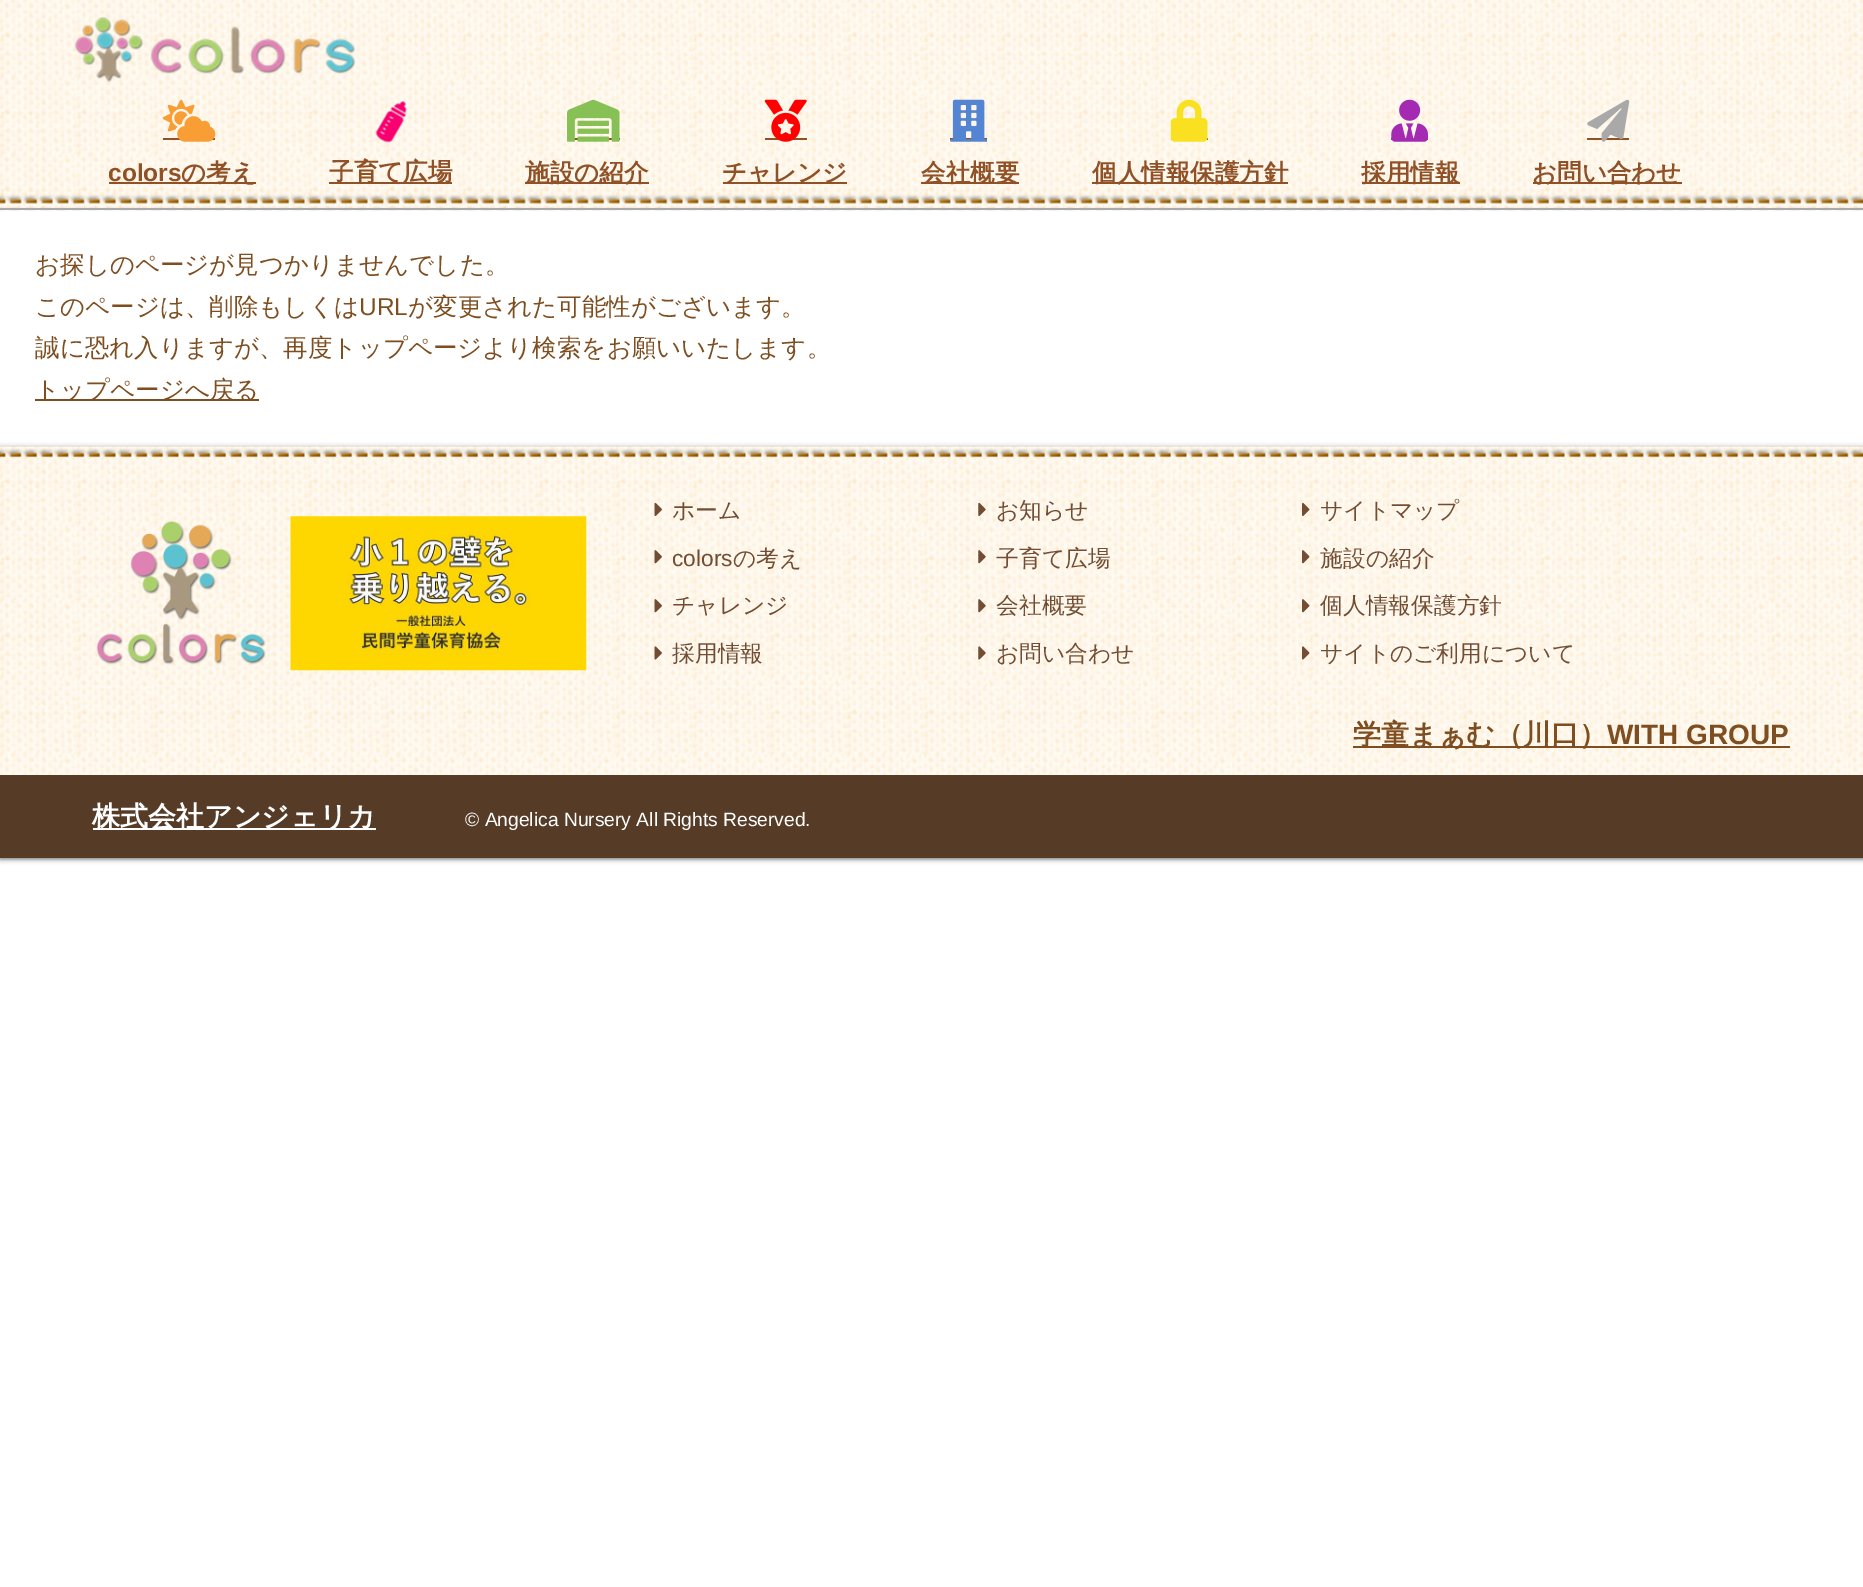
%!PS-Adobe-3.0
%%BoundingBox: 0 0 1863 1587
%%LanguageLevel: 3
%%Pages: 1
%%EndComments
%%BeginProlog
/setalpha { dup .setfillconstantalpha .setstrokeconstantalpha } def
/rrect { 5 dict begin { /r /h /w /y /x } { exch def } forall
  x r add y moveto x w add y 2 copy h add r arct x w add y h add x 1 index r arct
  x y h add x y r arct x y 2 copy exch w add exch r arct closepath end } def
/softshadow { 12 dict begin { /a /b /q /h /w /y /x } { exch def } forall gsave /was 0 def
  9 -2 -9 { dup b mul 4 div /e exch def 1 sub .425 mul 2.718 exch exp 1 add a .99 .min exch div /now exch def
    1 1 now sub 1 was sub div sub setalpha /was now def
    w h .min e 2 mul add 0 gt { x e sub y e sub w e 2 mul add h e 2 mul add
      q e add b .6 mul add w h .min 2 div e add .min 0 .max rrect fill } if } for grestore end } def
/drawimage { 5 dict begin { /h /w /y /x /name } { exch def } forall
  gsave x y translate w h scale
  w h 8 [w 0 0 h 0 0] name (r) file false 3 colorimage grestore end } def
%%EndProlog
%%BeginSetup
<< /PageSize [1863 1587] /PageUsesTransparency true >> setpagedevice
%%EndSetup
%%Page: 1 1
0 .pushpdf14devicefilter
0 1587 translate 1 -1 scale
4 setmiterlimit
1 setgray
0 0 1863 1587 rectfill
gsave
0 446 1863 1 rectclip
0.467 setgray
0 212 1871 236 0 2.5 1 softshadow
grestore
(images/1.raw) 0 0 1863 208 drawimage
(images/2.raw) 74 17 282 65 drawimage
0.565 0.318 0.153 setrgbcolor
163 138 52 2 rectfill
(images/3.raw) 162 99 54 43 drawimage
109 182 147 2 rectfill
(images/4.raw) 375 101 32 42 drawimage
329 182 123 2 rectfill
567 138 53 2 rectfill
(images/5.raw) 567 99 53 43 drawimage
525 182 124 2 rectfill
765 138 42 2 rectfill
(images/6.raw) 764 99 43 43 drawimage
723 182 124 2 rectfill
950 138 37 2 rectfill
(images/7.raw) 950 99 37 43 drawimage
921 182 98 2 rectfill
1171 138 37 2 rectfill
(images/8.raw) 1170 99 38 43 drawimage
1092 182 196 2 rectfill
1391 138 37 2 rectfill
(images/9.raw) 1391 99 37 43 drawimage
1362 182 98 2 rectfill
1587 138 42 2 rectfill
(images/10.raw) 1587 99 43 43 drawimage
1533 182 149 2 rectfill
(images/11.raw) 0 194 1863 17 drawimage
0.667 setgray
0 208 1863 2 rectfill
0.498 0.306 0.125 setrgbcolor
35 399 224 2 rectfill
0.4 setgray
0 448 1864 411 0 2.5 1 softshadow
(images/12.raw) 0 446 1863 329 drawimage
(images/13.raw) 0 448 1863 11 drawimage
(images/14.raw) 96 520 170 145 drawimage
(images/15.raw) 290 516 297 155 drawimage
(images/16.raw) 654 502 8 14 drawimage
(images/17.raw) 978 502 8 14 drawimage
(images/18.raw) 1302 502 8 14 drawimage
(images/19.raw) 654 550 8 14 drawimage
(images/20.raw) 978 550 8 14 drawimage
(images/21.raw) 1302 550 8 14 drawimage
(images/22.raw) 654 599 8 14 drawimage
(images/23.raw) 978 599 8 14 drawimage
(images/24.raw) 1302 599 8 14 drawimage
(images/25.raw) 654 646 8 14 drawimage
(images/26.raw) 978 646 8 14 drawimage
(images/27.raw) 1302 646 8 14 drawimage
0.498 0.306 0.125 setrgbcolor
1353 746 437 2 rectfill
0.337 0.231 0.153 setrgbcolor
0 775 1863 83 rectfill
1 setgray
93 828 283 2 rectfill
/LiberationSans-Bold [24.5 0 0 -24.5 0 0] selectfont
0.565 0.318 0.153 setrgbcolor
108 181 moveto (colors) show
/WenQuanYiZenHei-Bold [24.5 0 0 -24.5 0 0] selectfont
181 181 moveto (の考え) show
329 180 moveto (子育て広場) show
525 181 moveto (施設の紹介) show
722 181 moveto (チャレンジ) show
921 181 moveto (会社概要) show
1092 181 moveto (個人情報保護方針) show
1361 181 moveto (採用情報) show
1532 181 moveto (お問い合わせ) show
/WenQuanYiZenHei-Medium [24.5 0 0 -24.5 0 0] selectfont
0.498 0.306 0.125 setrgbcolor
35 273 moveto (お探しのページが見つかりませんでした。) show
35 315 moveto (このページは、削除もしくは) show
/LiberationSans-Regular [24.5 0 0 -24.5 0 0] selectfont
359 315 moveto (URL) show
/WenQuanYiZenHei-Medium [24.5 0 0 -24.5 0 0] selectfont
408 315 moveto (が変更された可能性がございます。) show
35 356 moveto (誠に恐れ入りますが、再度トップページより検索をお願いいたします。) show
35 398 moveto (トップページへ戻る) show
/WenQuanYiZenHei-Medium [22.75 0 0 -22.75 0 0] selectfont
0.447 0.302 0.204 setrgbcolor
672 518 moveto (ホーム) show
996 518 moveto (お知らせ) show
1320 518 moveto (サイトマップ) show
/LiberationSans-Regular [22.75 0 0 -22.75 0 0] selectfont
672 566 moveto (colors) show
/WenQuanYiZenHei-Medium [22.75 0 0 -22.75 0 0] selectfont
733 566 moveto (の考え) show
996 566 moveto (子育て広場) show
1320 566 moveto (施設の紹介) show
672 613 moveto (チャレンジ) show
996 613 moveto (会社概要) show
1320 613 moveto (個人情報保護方針) show
672 661 moveto (採用情報) show
996 661 moveto (お問い合わせ) show
1320 661 moveto (サイトのご利用について) show
/WenQuanYiZenHei-Bold [28 0 0 -28 0 0] selectfont
0.498 0.306 0.125 setrgbcolor
1353 744 moveto (学童まぁむ（川口）) show
/LiberationSans-Bold [28 0 0 -28 0 0] selectfont
1607 744 moveto (WITH GROUP) show
/WenQuanYiZenHei-Bold [28 0 0 -28 0 0] selectfont
1 setgray
92 826 moveto (株式会社アンジェリカ) show
/LiberationSans-Regular [19.25 0 0 -19.25 0 0] selectfont
465 826 moveto (© Angelica Nursery All Rights Reserved.) show
.poppdf14devicefilter showpage
%%EOF
